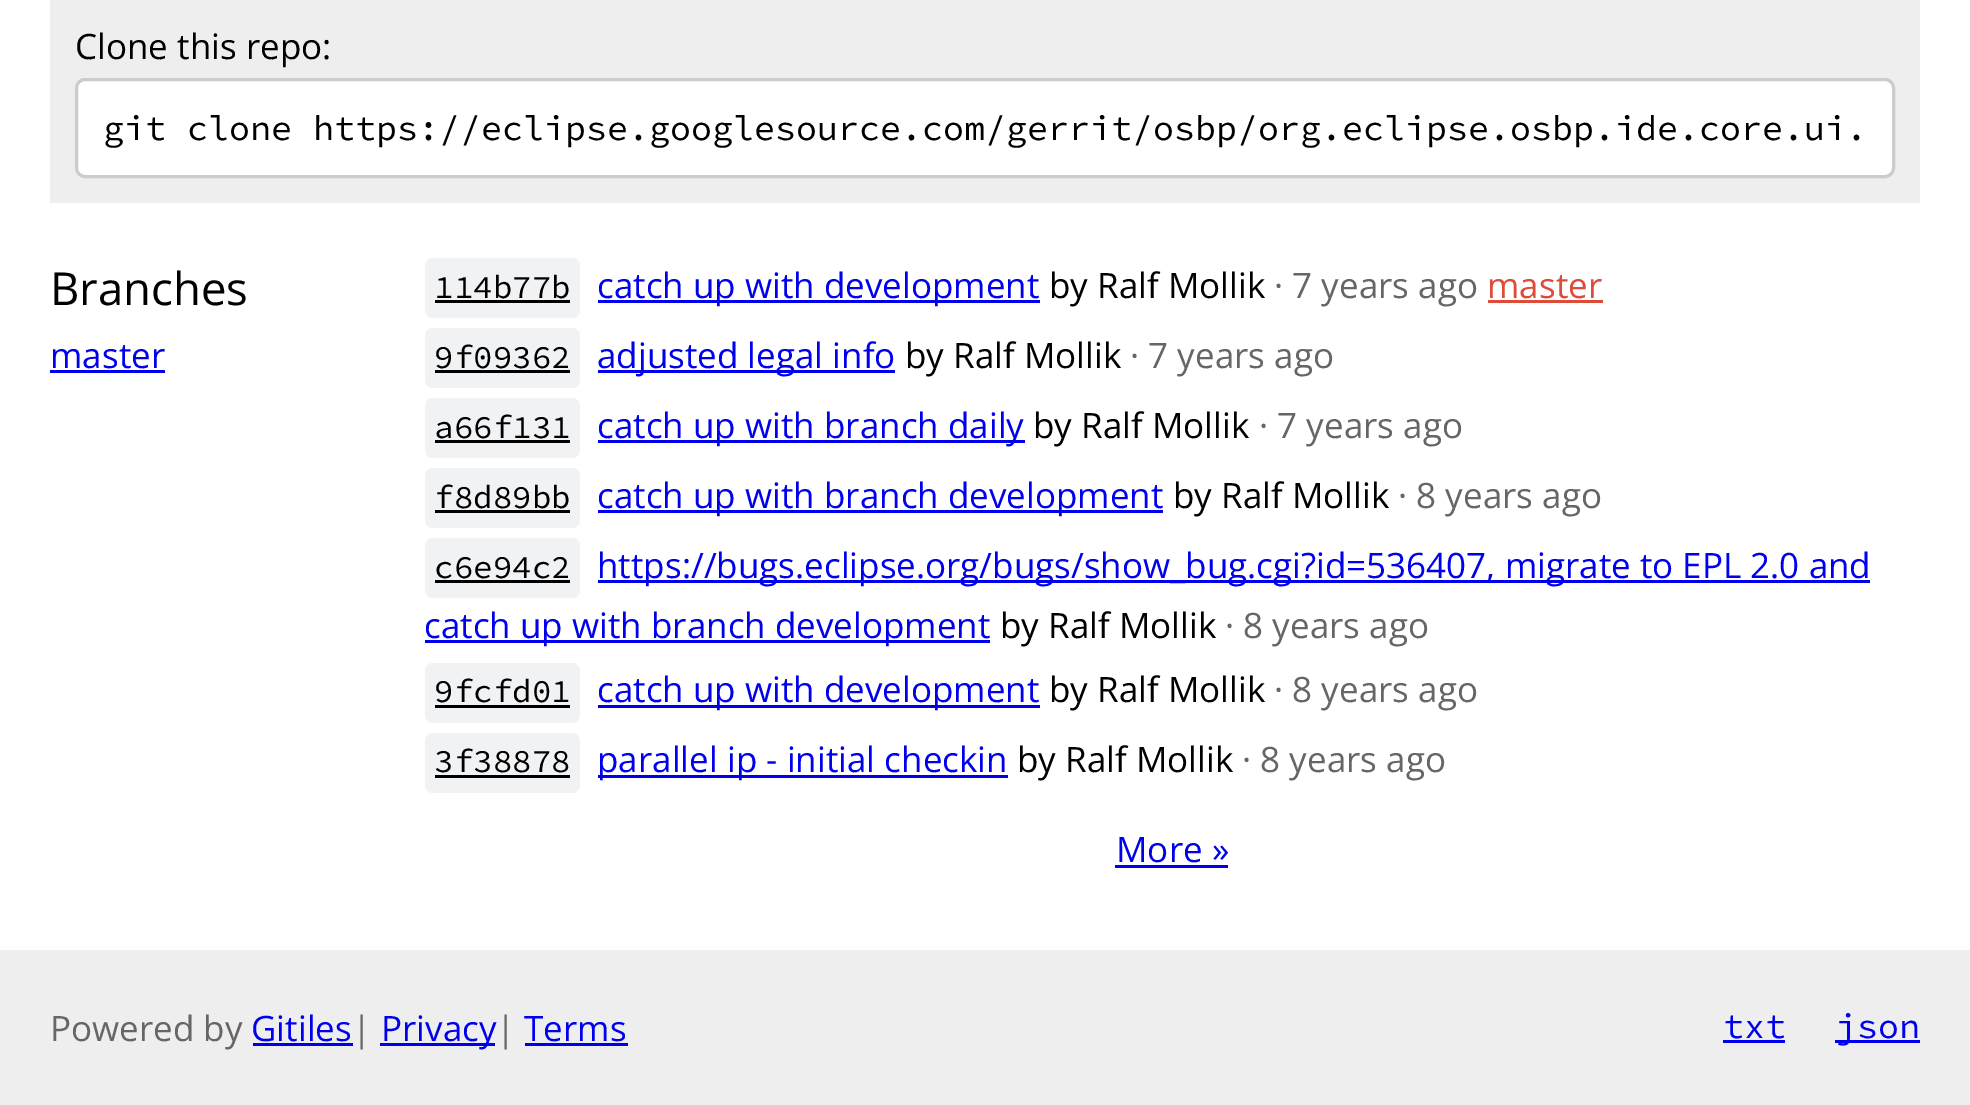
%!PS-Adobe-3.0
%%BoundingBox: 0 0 1970 1105
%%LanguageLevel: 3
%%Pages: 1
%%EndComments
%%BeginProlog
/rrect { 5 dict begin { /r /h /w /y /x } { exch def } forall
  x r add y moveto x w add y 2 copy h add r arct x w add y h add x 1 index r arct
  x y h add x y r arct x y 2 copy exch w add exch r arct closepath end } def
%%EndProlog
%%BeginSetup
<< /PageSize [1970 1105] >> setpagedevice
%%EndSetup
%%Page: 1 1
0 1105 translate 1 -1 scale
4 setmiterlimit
1 setgray
0 0 1970 1105 rectfill
0.933 setgray
50 0 1870 203 rectfill
1 setgray
76.5 79.5 1817 97 8.5 rrect gsave fill grestore
0.8 setgray
3 setlinewidth
stroke
0 0 0.933 setrgbcolor
50 370 115 3 rectfill
0.945 0.949 0.953 setrgbcolor
425 258 155 60 8 rrect fill
0 setgray
435 300 135 3 rectfill
0 0 0.933 setrgbcolor
598 300 442 3 rectfill
0.867 0.294 0.224 setrgbcolor
1488 300 115 3 rectfill
0.945 0.949 0.953 setrgbcolor
425 328 155 60 8 rrect fill
0 setgray
435 370 135 3 rectfill
0 0 0.933 setrgbcolor
598 370 297 3 rectfill
0.945 0.949 0.953 setrgbcolor
425 398 155 60 8 rrect fill
0 setgray
435 440 135 3 rectfill
0 0 0.933 setrgbcolor
598 440 427 3 rectfill
0.945 0.949 0.953 setrgbcolor
425 468 155 60 8 rrect fill
0 setgray
435 510 135 3 rectfill
0 0 0.933 setrgbcolor
598 510 565 3 rectfill
0.945 0.949 0.953 setrgbcolor
425 538 155 60 8 rrect fill
0 setgray
435 580 135 3 rectfill
0 0 0.933 setrgbcolor
598 580 1272 3 rectfill
425 640 565 3 rectfill
0.945 0.949 0.953 setrgbcolor
425 663 155 60 8 rrect fill
0 setgray
435 705 135 3 rectfill
0 0 0.933 setrgbcolor
598 705 442 3 rectfill
0.945 0.949 0.953 setrgbcolor
425 733 155 60 8 rrect fill
0 setgray
435 775 135 3 rectfill
0 0 0.933 setrgbcolor
598 775 410 3 rectfill
1115 865 113 3 rectfill
0.933 setgray
0 950 1970 155 rectfill
0 0 0.933 setrgbcolor
253 1043 100 3 rectfill
380 1043 115 3 rectfill
525 1043 103 3 rectfill
1723 1040 62 3 rectfill
1835 1040 85 3 rectfill
/OpenSans-Regular [35 0 0 -35 0 0] selectfont
0 setgray
75 59 moveto (Clone this repo:) show
/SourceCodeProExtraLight-ExtraLight [35 0 0 -35 0 0] selectfont
103 140 moveto (git clone https://eclipse.googlesource.com/gerrit/osbp/org.eclipse.osbp.ide.core.ui.) show
/OpenSans-Regular [45.5 0 0 -45.5 0 0] selectfont
50 305 moveto (Branches) show
/OpenSans-Regular [35 0 0 -35 0 0] selectfont
0 0 0.933 setrgbcolor
50 368 moveto (master) show
/SourceCodeProExtraLight-ExtraLight [32.5 0 0 -32.5 0 0] selectfont
0 setgray
434 298 moveto (114b77b) show
/OpenSans-Regular [35 0 0 -35 0 0] selectfont
0 0 0.933 setrgbcolor
597 298 moveto (catch up with development) show
0 setgray
1049 298 moveto (by Ralf Mollik) show
0.4 setgray
1274 298 moveto (· 7 years ago) show
0.867 0.294 0.224 setrgbcolor
1487 298 moveto (master) show
/SourceCodeProExtraLight-ExtraLight [32.5 0 0 -32.5 0 0] selectfont
0 setgray
434 368 moveto (9f09362) show
/OpenSans-Regular [35 0 0 -35 0 0] selectfont
0 0 0.933 setrgbcolor
597 368 moveto (adjusted legal info) show
0 setgray
905 368 moveto (by Ralf Mollik) show
0.4 setgray
1130 368 moveto (· 7 years ago) show
/SourceCodeProExtraLight-ExtraLight [32.5 0 0 -32.5 0 0] selectfont
0 setgray
434 438 moveto (a66f131) show
/OpenSans-Regular [35 0 0 -35 0 0] selectfont
0 0 0.933 setrgbcolor
597 438 moveto (catch up with branch daily) show
0 setgray
1033 438 moveto (by Ralf Mollik) show
0.4 setgray
1259 438 moveto (· 7 years ago) show
/SourceCodeProExtraLight-ExtraLight [32.5 0 0 -32.5 0 0] selectfont
0 setgray
434 508 moveto (f8d89bb) show
/OpenSans-Regular [35 0 0 -35 0 0] selectfont
0 0 0.933 setrgbcolor
597 508 moveto (catch up with branch development) show
0 setgray
1173 508 moveto (by Ralf Mollik) show
0.4 setgray
1398 508 moveto (· 8 years ago) show
/SourceCodeProExtraLight-ExtraLight [32.5 0 0 -32.5 0 0] selectfont
0 setgray
434 578 moveto (c6e94c2) show
/OpenSans-Regular [35 0 0 -35 0 0] selectfont
0 0 0.933 setrgbcolor
597 578 moveto (https://bugs.eclipse.org/bugs/show_bug.cgi?id=536407, migrate to EPL 2.0 and) show
424 638 moveto (catch up with branch development) show
0 setgray
1000 638 moveto (by Ralf Mollik) show
0.4 setgray
1225 638 moveto (· 8 years ago) show
/SourceCodeProExtraLight-ExtraLight [32.5 0 0 -32.5 0 0] selectfont
0 setgray
434 702 moveto (9fcfd01) show
/OpenSans-Regular [35 0 0 -35 0 0] selectfont
0 0 0.933 setrgbcolor
597 702 moveto (catch up with development) show
0 setgray
1049 702 moveto (by Ralf Mollik) show
0.4 setgray
1274 702 moveto (· 8 years ago) show
/SourceCodeProExtraLight-ExtraLight [32.5 0 0 -32.5 0 0] selectfont
0 setgray
434 772 moveto (3f38878) show
/OpenSans-Regular [35 0 0 -35 0 0] selectfont
0 0 0.933 setrgbcolor
597 772 moveto (parallel ip - initial checkin) show
0 setgray
1017 772 moveto (by Ralf Mollik) show
0.4 setgray
1242 772 moveto (· 8 years ago) show
0 0 0.933 setrgbcolor
1116 862 moveto (More ») show
0.4 setgray
50 1041 moveto (Powered by) show
0 0 0.933 setrgbcolor
251 1041 moveto (Gitiles) show
0.4 setgray
352 1041 moveto (|) show
0 0 0.933 setrgbcolor
381 1041 moveto (Privacy) show
0.4 setgray
496 1041 moveto (|) show
0 0 0.933 setrgbcolor
524 1041 moveto (Terms) show
/SourceCodeProExtraLight-ExtraLight [35 0 0 -35 0 0] selectfont
1723 1038 moveto (txt) show
1836 1038 moveto (json) show
showpage
%%EOF
